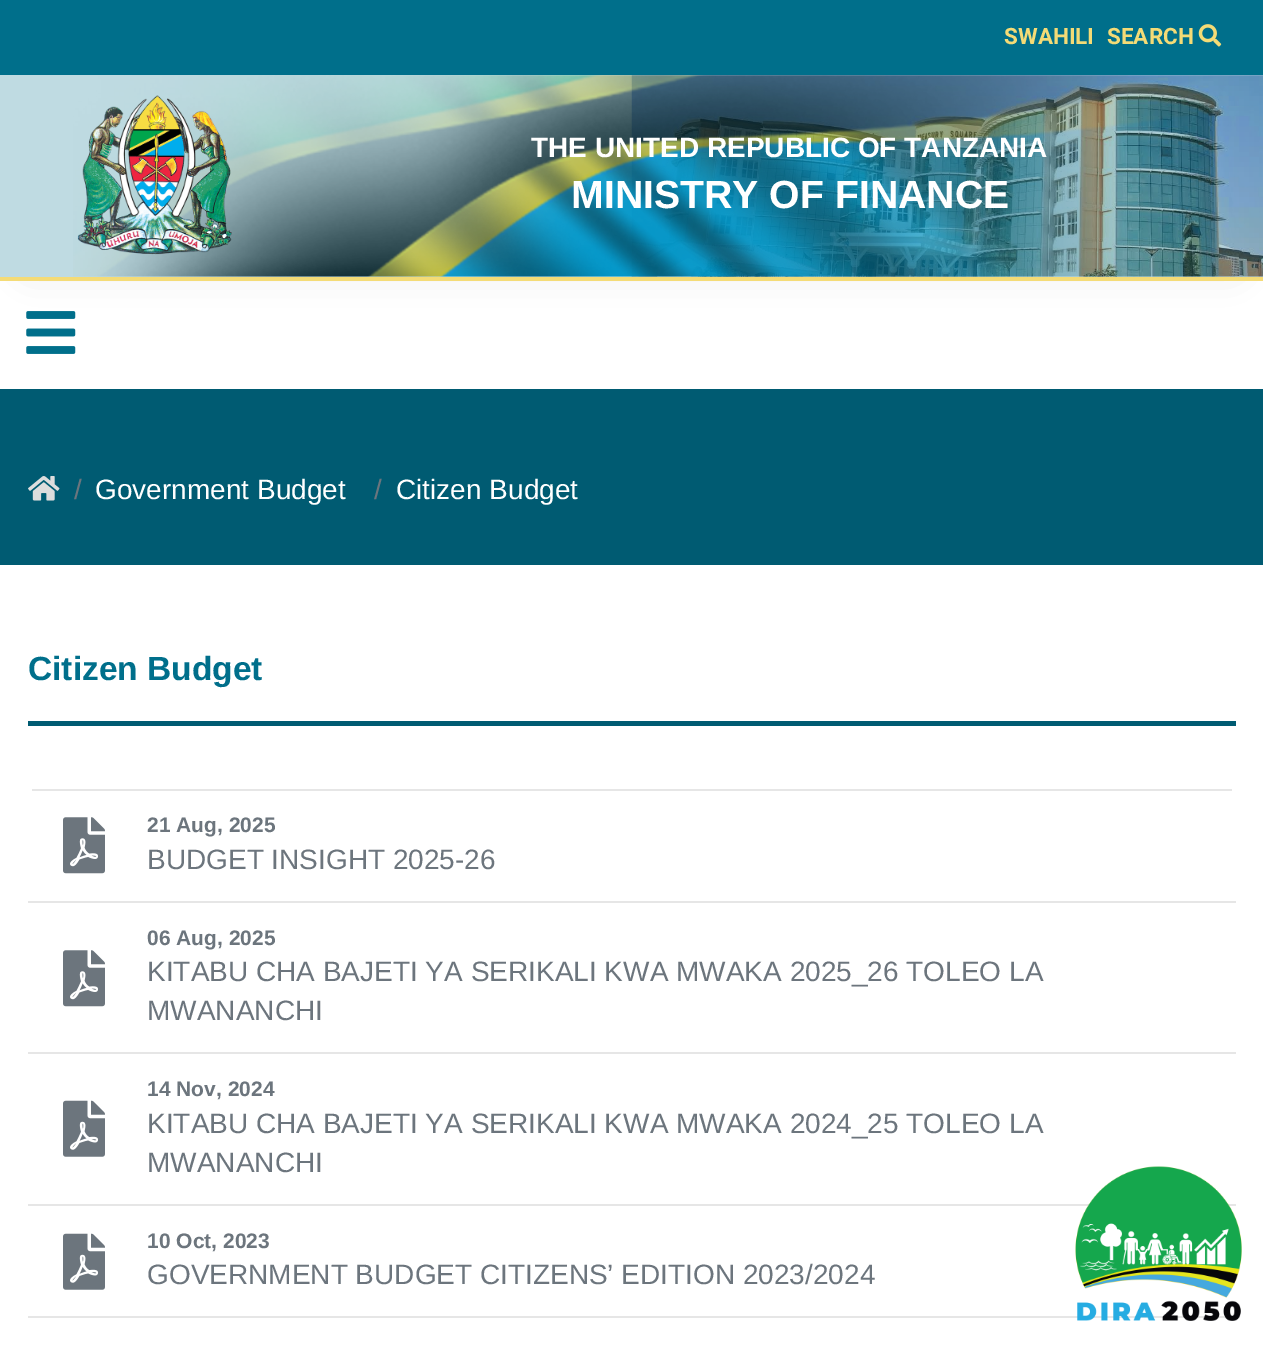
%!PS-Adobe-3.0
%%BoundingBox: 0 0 1263 1351
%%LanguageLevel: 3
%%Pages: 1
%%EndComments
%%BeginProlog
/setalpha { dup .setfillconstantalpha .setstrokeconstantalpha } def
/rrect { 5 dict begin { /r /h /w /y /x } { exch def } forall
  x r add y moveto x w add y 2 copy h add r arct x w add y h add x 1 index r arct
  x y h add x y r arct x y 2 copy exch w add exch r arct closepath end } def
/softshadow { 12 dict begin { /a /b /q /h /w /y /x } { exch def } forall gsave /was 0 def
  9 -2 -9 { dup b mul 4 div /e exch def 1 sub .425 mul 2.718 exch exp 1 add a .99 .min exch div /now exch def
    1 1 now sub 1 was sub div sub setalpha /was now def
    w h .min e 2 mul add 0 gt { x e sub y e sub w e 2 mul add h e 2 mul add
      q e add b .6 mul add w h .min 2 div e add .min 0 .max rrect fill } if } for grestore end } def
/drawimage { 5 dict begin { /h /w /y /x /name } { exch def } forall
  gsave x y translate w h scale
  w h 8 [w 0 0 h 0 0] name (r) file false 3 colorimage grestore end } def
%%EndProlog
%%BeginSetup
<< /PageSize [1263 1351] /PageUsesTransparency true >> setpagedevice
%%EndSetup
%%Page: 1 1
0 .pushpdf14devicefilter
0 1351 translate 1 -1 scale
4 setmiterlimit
0 0.357 0.447 setrgbcolor
0 0 1263 1351 rectfill
1 setgray
0 281 1263 108 rectfill
0 setgray
26 -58 1211 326 5 17.5 0.15 softshadow
0 0.435 0.545 setrgbcolor
0 0 1263 75 rectfill
(images/1.raw) 1198 24 24 23 drawimage
(images/2.raw) 26 311 50 43 drawimage
1 setgray
0 75 1263 202 rectfill
0.957 0.859 0.463 setrgbcolor
0 277 1263 4 rectfill
(images/4.raw) 631 75 632 202 drawimage
(images/3.raw) 73 75 1190 202 drawimage
0.25 setalpha
0 0.435 0.545 setrgbcolor
0 75 1263 202 rectfill
1 setalpha
(images/5.raw) 77 95 155 160 drawimage
(images/6.raw) 28 476 32 25 drawimage
1 setgray
0 565 1263 786 rectfill
0 0.357 0.447 setrgbcolor
28 721 1208 5 rectfill
0.902 setgray
32 789 1200 2 rectfill
(images/7.raw) 63 817 42 57 drawimage
28 901 1208 2 rectfill
(images/7.raw) 63 950 42 57 drawimage
28 1052 1208 2 rectfill
(images/8.raw) 63 1100 42 57 drawimage
28 1204 1208 2 rectfill
(images/8.raw) 63 1233 42 57 drawimage
28 1316 1199 2 rectfill
(images/9.raw) 1075 1166 167 155 drawimage
/Roboto-Bold [22.5 0 0 -22.5 0 0] selectfont
0.957 0.859 0.463 setrgbcolor
1004 44 moveto (SWAHILI) show
1107 44 moveto (SEARCH) show
/LiberationSans-Bold [28 0 0 -28 0 0] selectfont
1 setgray
531 157 moveto (THE UNITED REPUBLIC OF TANZANIA) show
/LiberationSans-Bold [39.25 0 0 -39.25 0 0] selectfont
571 208 moveto (MINISTRY OF FINANCE) show
/LiberationSans-Regular [28 0 0 -28 0 0] selectfont
0.424 0.459 0.49 setrgbcolor
74 499 moveto (/) show
1 setgray
95 499 moveto (Government Budget) show
0.424 0.459 0.49 setrgbcolor
374 499 moveto (/) show
1 setgray
396 499 moveto (Citizen Budget) show
/LiberationSans-Bold [33.5 0 0 -33.5 0 0] selectfont
0 0.435 0.545 setrgbcolor
28 680 moveto (Citizen Budget) show
/LiberationSans-Bold [21 0 0 -21 0 0] selectfont
0.424 0.459 0.49 setrgbcolor
147 832 moveto (21 Aug, 2025) show
/LiberationSans-Regular [28 0 0 -28 0 0] selectfont
147 869 moveto (BUDGET INSIGHT 2025-26) show
/LiberationSans-Bold [21 0 0 -21 0 0] selectfont
147 945 moveto (06 Aug, 2025) show
/LiberationSans-Regular [28 0 0 -28 0 0] selectfont
147 981 moveto (KITABU CHA BAJETI YA SERIKALI KWA MWAKA 2025_26 TOLEO LA) show
147 1020 moveto (MWANANCHI) show
/LiberationSans-Bold [21 0 0 -21 0 0] selectfont
147 1096 moveto (14 Nov, 2024) show
/LiberationSans-Regular [28 0 0 -28 0 0] selectfont
147 1133 moveto (KITABU CHA BAJETI YA SERIKALI KWA MWAKA 2024_25 TOLEO LA) show
147 1172 moveto (MWANANCHI) show
/LiberationSans-Bold [21 0 0 -21 0 0] selectfont
147 1248 moveto (10 Oct, 2023) show
/LiberationSans-Regular [28 0 0 -28 0 0] selectfont
147 1284 moveto (GOVERNMENT BUDGET CITIZENS’ EDITION 2023/2024) show
.poppdf14devicefilter showpage
%%EOF
